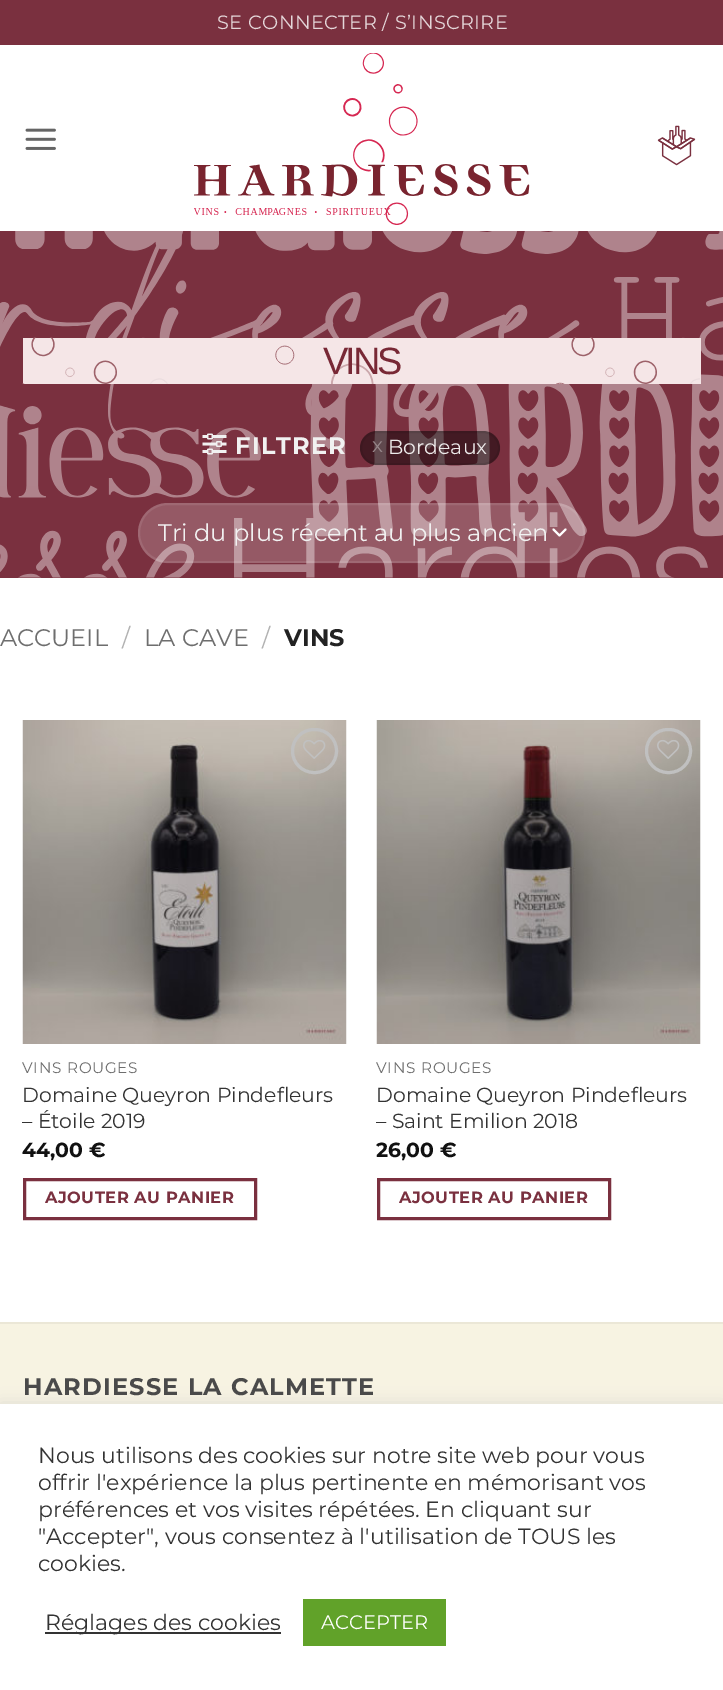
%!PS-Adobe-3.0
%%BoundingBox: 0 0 723 1690
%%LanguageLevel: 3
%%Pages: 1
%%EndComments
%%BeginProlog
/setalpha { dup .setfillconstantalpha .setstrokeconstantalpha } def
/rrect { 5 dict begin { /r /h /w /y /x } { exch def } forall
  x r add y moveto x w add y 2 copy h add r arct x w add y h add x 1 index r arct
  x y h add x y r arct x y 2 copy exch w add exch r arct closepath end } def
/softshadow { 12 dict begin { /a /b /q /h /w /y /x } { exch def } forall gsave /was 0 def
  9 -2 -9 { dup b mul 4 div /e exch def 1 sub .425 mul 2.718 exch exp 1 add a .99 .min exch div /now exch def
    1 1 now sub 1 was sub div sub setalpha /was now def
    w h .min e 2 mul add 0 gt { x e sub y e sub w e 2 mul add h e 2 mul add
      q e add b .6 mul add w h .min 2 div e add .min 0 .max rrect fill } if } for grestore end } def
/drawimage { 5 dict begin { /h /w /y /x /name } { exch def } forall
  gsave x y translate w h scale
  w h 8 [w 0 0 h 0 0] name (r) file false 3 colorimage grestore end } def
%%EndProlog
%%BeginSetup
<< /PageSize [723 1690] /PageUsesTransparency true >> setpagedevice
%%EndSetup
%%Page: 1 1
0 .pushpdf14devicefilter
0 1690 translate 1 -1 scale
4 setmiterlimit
1 setgray
0 0 723 1690 rectfill
0.478 0.188 0.247 setrgbcolor
0 0 723 45 rectfill
(images/1.raw) 25 128 31 22 drawimage
(images/2.raw) 194 53 336 172 drawimage
(images/3.raw) 657 125 39 41 drawimage
0 577 723 1 rectfill
(images/4.raw) 0 231 723 347 drawimage
0.961 0.902 0.906 setrgbcolor
23 338 678 46 rectfill
(images/5.raw) 22 337 678 47 drawimage
(images/6.raw) 202 433 25 22 drawimage
0.45 setalpha
0 setgray
360 431 140 34 17 rrect fill
0.09 setalpha
2 setlinewidth
361 432 138 32 16 rrect stroke
0.2 setalpha
1 setgray
138 503 447 60 30 rrect fill
1 setalpha
1 setlinecap
1 setlinejoin
newpath 553.5 529.5 moveto 559.5 535.5 lineto 565.5 529.5 lineto stroke
0.09 setalpha
0 setlinecap
0 setlinejoin
139 504 445 58 29 rrect stroke
1 setalpha
(images/7.raw) 22 720 325 324 drawimage
0.753 setgray
3 setlinewidth
292.5 729.5 44 43 21.5 rrect stroke
(images/8.raw) 303 740 23 19 drawimage
0.478 0.188 0.247 setrgbcolor
24.5 1179.5 231 39 rectstroke
(images/9.raw) 376 720 325 324 drawimage
0.753 setgray
646.5 729.5 44 43 21.5 rrect stroke
(images/10.raw) 657 740 23 19 drawimage
0.478 0.188 0.247 setrgbcolor
378.5 1179.5 231 39 rectstroke
0.969 0.953 0.886 setrgbcolor
0 1324 723 80 rectfill
0.922 0.906 0.843 setrgbcolor
0 1322 723 2 rectfill
0.675 0.671 0.671 setrgbcolor
0 1403 723 286 0 7.5 0.3 softshadow
1 setgray
0 1404 723 286 rectfill
0.2 setgray
45 1632 236 2 rectfill
0.38 0.635 0.161 setrgbcolor
303 1599 143 47 rectfill
/Montserrat-Regular [19.25 0 0 -19.25 0 0] selectfont
0.894 0.839 0.851 setrgbcolor
217 29 moveto 0.4 0 (SE CONNECTER / S’INSCRIRE) ashow
/LiberationSans-Regular [38 0 0 -38 0 0] selectfont
0.471 0.157 0.208 setrgbcolor
323 374 moveto -3 0 (VINS) ashow
/Montserrat-Bold [24 0 0 -24 0 0] selectfont
0.945 setgray
235 454 moveto 1.2 0 (FILTRER) ashow
/Montserrat-Regular [20.4 0 0 -20.4 0 0] selectfont
0.592 0.529 0.541 setrgbcolor
372 452 moveto (x) show
0.929 0.918 0.918 setrgbcolor
388 454 moveto (Bordeaux) show
/Montserrat-Regular [24 0 0 -24 0 0] selectfont
0.945 setgray
158 541 moveto (Tri du plus récent au plus ancien) show
0.431 setgray
0 646 moveto (ACCUEIL) show
0.698 setgray
122 646 moveto (/) show
0.431 setgray
144 646 moveto (LA CAVE) show
0.698 setgray
262 646 moveto (/) show
/Montserrat-Bold [24 0 0 -24 0 0] selectfont
0.133 setgray
284 646 moveto (VINS) show
/Montserrat-Regular [15.25 0 0 -15.25 0 0] selectfont
0.431 setgray
22 1073 moveto 0.75 0 (VINS ROUGES) ashow
/Montserrat-Regular [20.4 0 0 -20.4 0 0] selectfont
0.2 setgray
22 1102 moveto (Domaine Queyron Pindefleurs) show
22 1128 moveto (– Étoile 2019) show
/Montserrat-Bold [20.4 0 0 -20.4 0 0] selectfont
0.067 setgray
22 1157 moveto (44,00 €) show
/Montserrat-Bold [16.25 0 0 -16.25 0 0] selectfont
0.478 0.188 0.247 setrgbcolor
45 1203 moveto 0.5 0 (AJOUTER AU PANIER) ashow
/Montserrat-Regular [15.25 0 0 -15.25 0 0] selectfont
0.431 setgray
376 1073 moveto 0.75 0 (VINS ROUGES) ashow
/Montserrat-Regular [20.4 0 0 -20.4 0 0] selectfont
0.2 setgray
376 1102 moveto (Domaine Queyron Pindefleurs) show
376 1128 moveto (– Saint Emilion 2018) show
/Montserrat-Bold [20.4 0 0 -20.4 0 0] selectfont
0.067 setgray
376 1157 moveto (26,00 €) show
/Montserrat-Bold [16.25 0 0 -16.25 0 0] selectfont
0.478 0.188 0.247 setrgbcolor
399 1203 moveto 0.5 0 (AJOUTER AU PANIER) ashow
/Montserrat-Bold [24 0 0 -24 0 0] selectfont
0.29 setgray
23 1395 moveto 1.2 0 (HARDIESSE LA CALMETTE) ashow
/Montserrat-Regular [22 0 0 -22 0 0] selectfont
0.2 setgray
38 1463 moveto (Nous utilisons des cookies sur notre site web pour vous) show
38 1490 moveto (offrir l'expérience la plus pertinente en mémorisant vos) show
38 1517 moveto (préférences et vos visites répétées. En cliquant sur) show
38 1544 moveto ("Accepter", vous consentez à l'utilisation de TOUS les) show
38 1571 moveto (cookies.) show
45 1630 moveto (Réglages des cookies) show
/Montserrat-Regular [19.5 0 0 -19.5 0 0] selectfont
1 setgray
321 1629 moveto (ACCEPTER) show
.poppdf14devicefilter showpage
%%EOF
